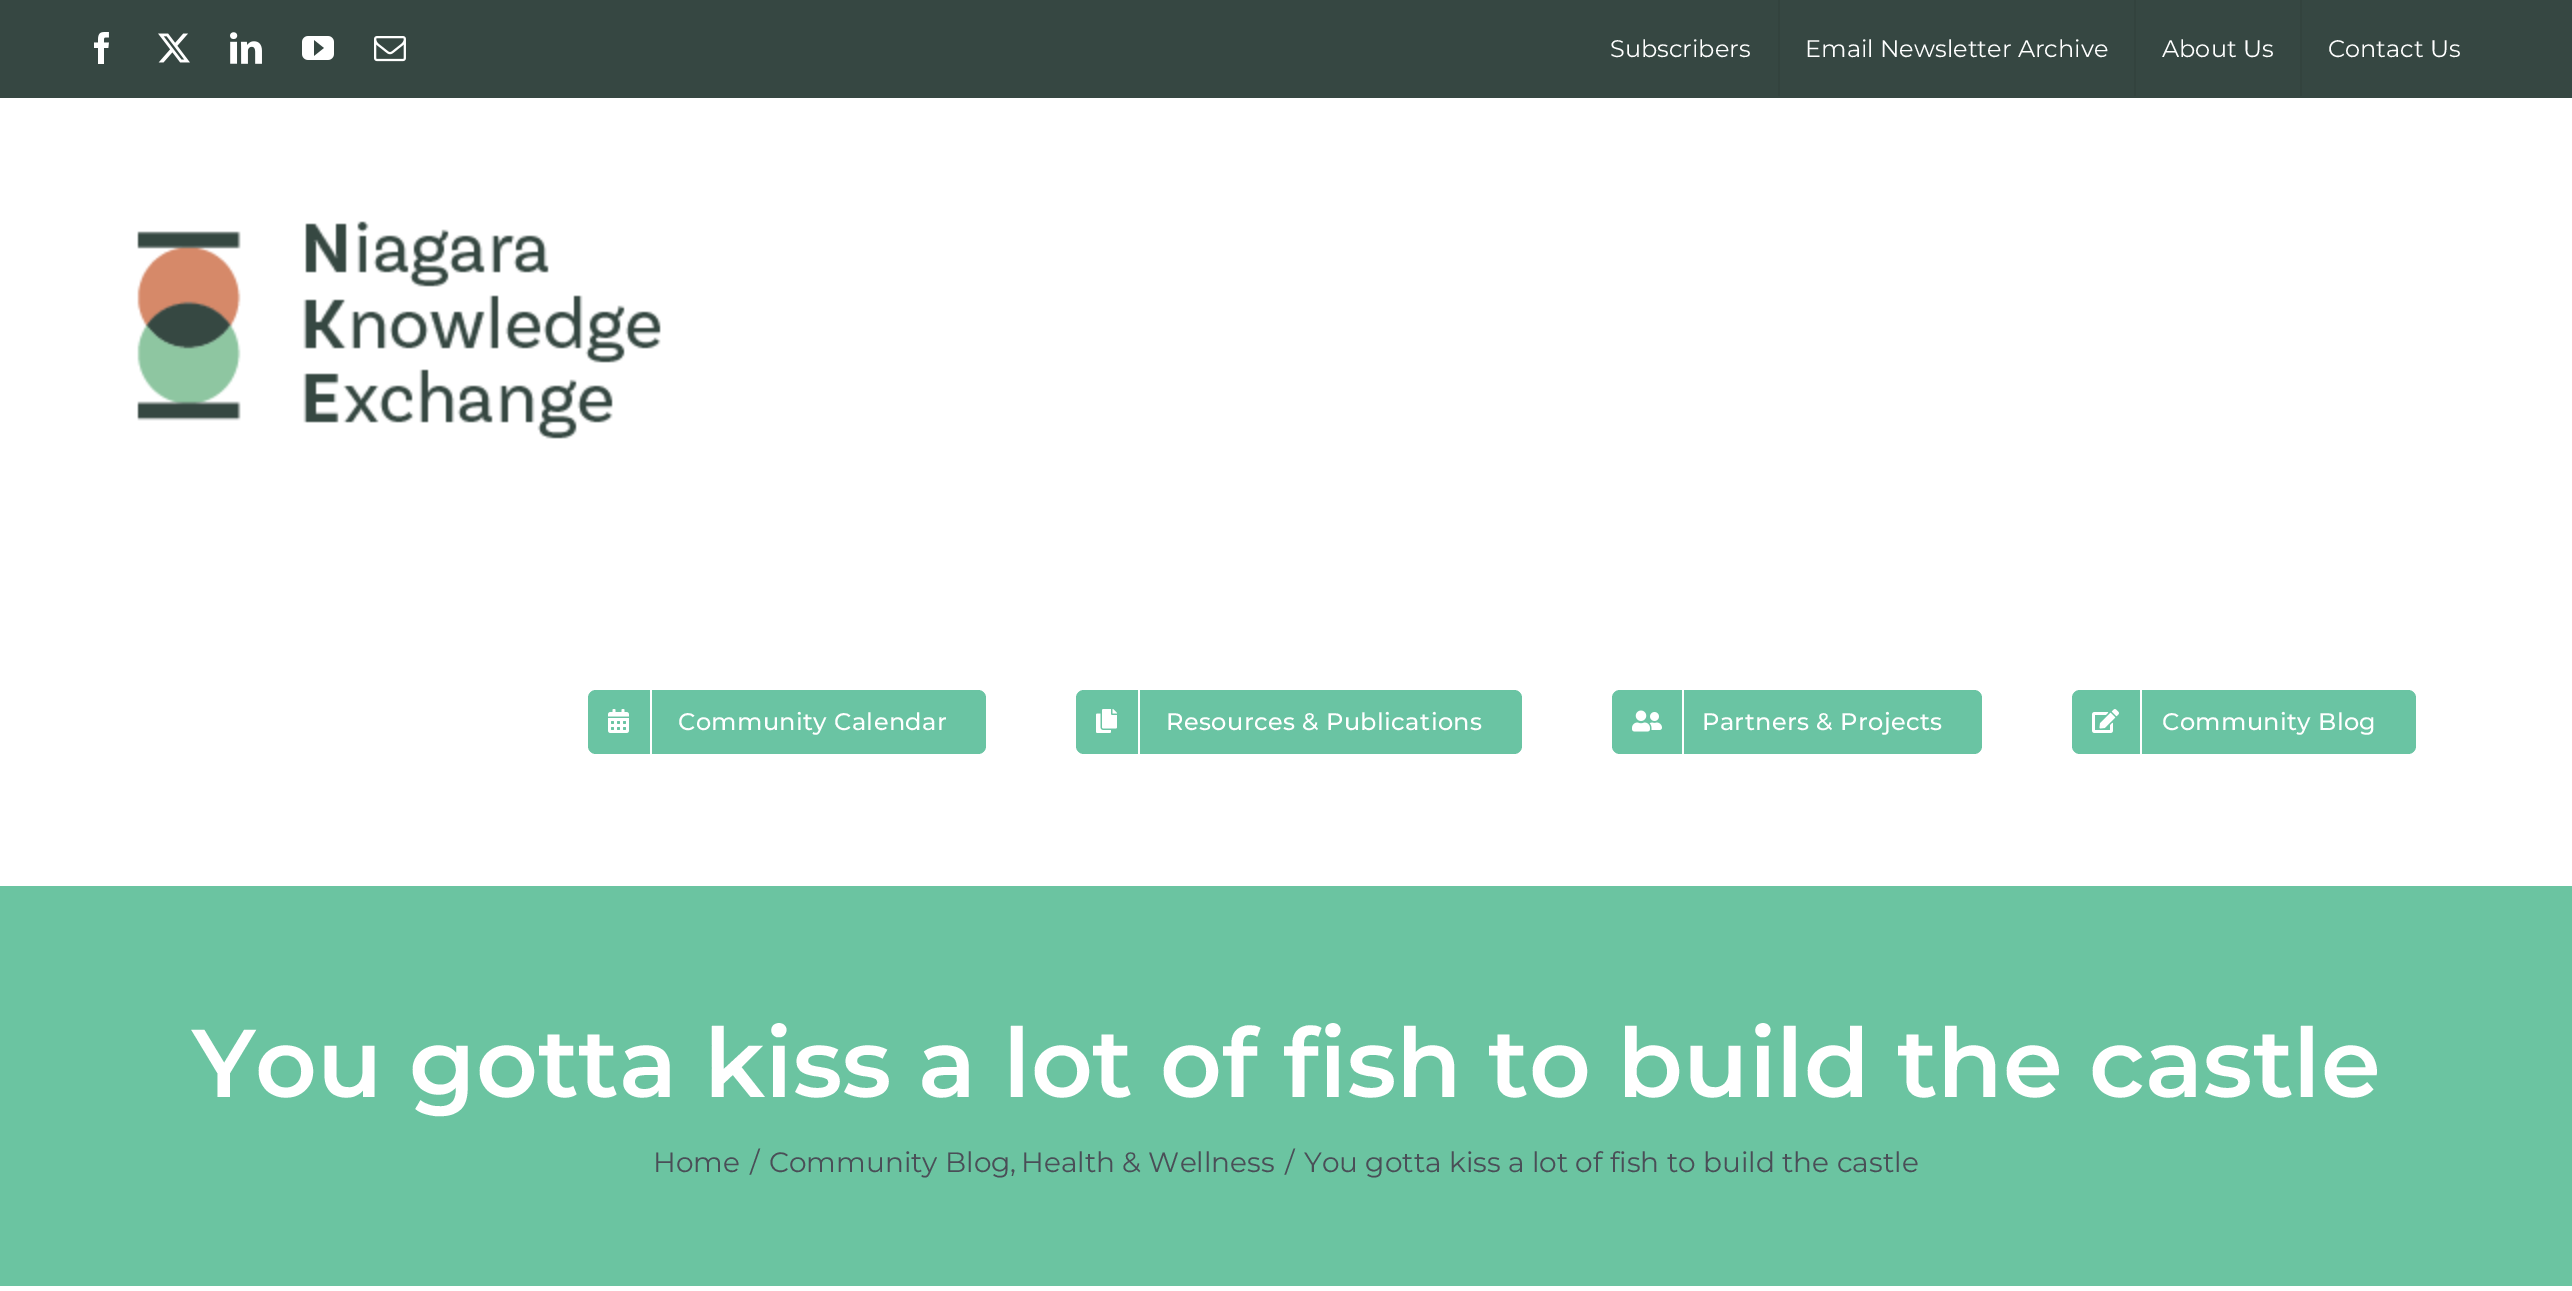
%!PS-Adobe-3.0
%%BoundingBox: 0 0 2572 1291
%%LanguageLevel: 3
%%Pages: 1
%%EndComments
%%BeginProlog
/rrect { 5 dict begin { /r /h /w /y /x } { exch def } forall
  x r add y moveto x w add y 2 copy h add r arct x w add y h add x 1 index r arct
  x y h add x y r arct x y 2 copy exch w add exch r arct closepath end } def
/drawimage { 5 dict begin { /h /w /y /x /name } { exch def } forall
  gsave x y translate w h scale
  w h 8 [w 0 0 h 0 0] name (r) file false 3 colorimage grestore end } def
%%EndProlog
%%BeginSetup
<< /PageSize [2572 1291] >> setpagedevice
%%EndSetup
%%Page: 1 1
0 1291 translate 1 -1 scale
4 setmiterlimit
1 setgray
0 0 2572 1291 rectfill
0.212 0.278 0.259 setrgbcolor
0 0 2572 98 rectfill
(images/1.raw) 94 32 15 32 drawimage
(images/2.raw) 158 33 32 30 drawimage
(images/3.raw) 230 32 32 32 drawimage
(images/4.raw) 302 36 32 24 drawimage
(images/5.raw) 374 36 32 26 drawimage
0.2 0.263 0.243 setrgbcolor
1778 0 2 96 rectfill
2134 0 2 96 rectfill
2300 0 2 96 rectfill
(images/6.raw) 137 221 524 218 drawimage
0.416 0.769 0.639 setrgbcolor
588 690 398 64 8 rrect fill
1 setgray
650 690 2 64 rectfill
(images/7.raw) 608 709 21 24 drawimage
0.416 0.769 0.639 setrgbcolor
1076 690 446 64 8 rrect fill
1 setgray
1138 690 2 64 rectfill
(images/8.raw) 1096 709 21 24 drawimage
0.416 0.769 0.639 setrgbcolor
1612 690 370 64 8 rrect fill
1 setgray
1682 690 2 64 rectfill
(images/9.raw) 1632 710 30 22 drawimage
0.416 0.769 0.639 setrgbcolor
2072 690 344 64 8 rrect fill
1 setgray
2140 690 2 64 rectfill
(images/10.raw) 2092 709 27 24 drawimage
0.42 0.769 0.631 setrgbcolor
0 886 2572 400 rectfill
/Montserrat-Regular [24 0 0 -24 0 0] selectfont
1 setgray
1610 57 moveto (Subscribers) show
1805 57 moveto (Email Newsletter Archive) show
2162 57 moveto (About Us) show
2328 57 moveto (Contact Us) show
/Montserrat-Medium [24 0 0 -24 0 0] selectfont
678 730 moveto 0.4 0 (Community Calendar) ashow
1166 730 moveto 0.4 0 (Resources & Publications) ashow
1702 730 moveto 0.4 0 (Partners & Projects) ashow
2162 730 moveto 0.4 0 (Community Blog) ashow
/Montserrat-SemiBold [96 0 0 -96 0 0] selectfont
192 1097 moveto (You gotta kiss a lot of fish to build the castle) show
/Montserrat-Regular [28 0 0 -28 0 0] selectfont
0.29 0.306 0.341 setrgbcolor
653 1172 moveto (Home) show
750 1172 moveto (/) show
769 1172 moveto (Community Blog,) show
1021 1172 moveto (Health & Wellness) show
1285 1172 moveto (/) show
1304 1172 moveto (You gotta kiss a lot of fish to build the castle) show
showpage
%%EOF
